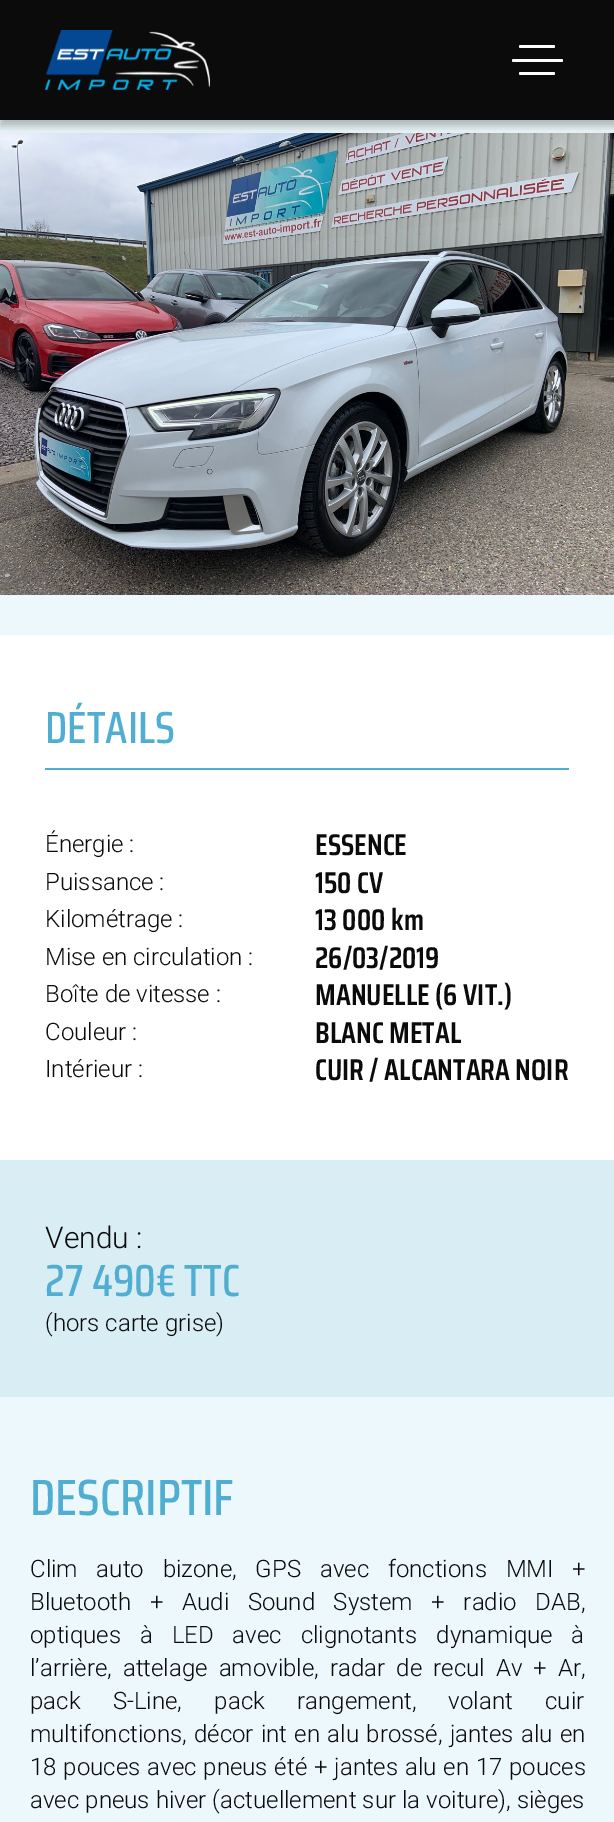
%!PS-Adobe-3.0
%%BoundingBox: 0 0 614 1822
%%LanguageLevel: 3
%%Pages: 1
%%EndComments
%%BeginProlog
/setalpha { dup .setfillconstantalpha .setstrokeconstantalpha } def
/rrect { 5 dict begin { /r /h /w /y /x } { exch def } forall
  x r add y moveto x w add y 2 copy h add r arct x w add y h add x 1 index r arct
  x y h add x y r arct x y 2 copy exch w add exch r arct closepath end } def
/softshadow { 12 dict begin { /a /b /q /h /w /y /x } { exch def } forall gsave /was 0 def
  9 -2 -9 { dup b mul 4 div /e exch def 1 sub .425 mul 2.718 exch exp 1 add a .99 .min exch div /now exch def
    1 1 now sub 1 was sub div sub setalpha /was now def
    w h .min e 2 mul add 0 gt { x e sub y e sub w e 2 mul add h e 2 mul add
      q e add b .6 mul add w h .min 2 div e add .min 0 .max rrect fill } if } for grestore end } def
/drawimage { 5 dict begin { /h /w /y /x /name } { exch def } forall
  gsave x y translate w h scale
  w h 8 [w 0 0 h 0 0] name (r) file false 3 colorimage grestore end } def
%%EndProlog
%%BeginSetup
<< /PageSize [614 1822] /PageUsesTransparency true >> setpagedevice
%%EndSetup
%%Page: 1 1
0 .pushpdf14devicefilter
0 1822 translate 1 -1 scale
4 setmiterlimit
0.925 0.973 0.988 setrgbcolor
0 0 614 1822 rectfill
(images/2.raw) 0 133 614 462 drawimage
0.043 setgray
0 -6 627 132 0 5 0.3 softshadow
0 0 614 120 rectfill
(images/1.raw) 45 30 165 60 drawimage
1 setgray
519 45 36 3 1.5 rrect fill
512 59 51 3 1.5 rrect fill
519 72 36 3 1.5 rrect fill
0 635 614 525 rectfill
0.31 0.682 0.82 setrgbcolor
45 768 524 2 rectfill
0.851 0.929 0.957 setrgbcolor
0 1160 614 237 rectfill
/SairaCondensed-Medium [45 0 0 -45 0 0] selectfont
0.31 0.682 0.82 setrgbcolor
45 743 moveto (DÉTAILS) show
/Roboto-Light [24 0 0 -24 0 0] selectfont
0.043 setgray
45 852 moveto (Énergie :) show
/SairaCondensed-SemiBold [30 0 0 -30 0 0] selectfont
315 855 moveto (ESSENCE) show
/Roboto-Light [24 0 0 -24 0 0] selectfont
45 890 moveto (Puissance :) show
/SairaCondensed-SemiBold [30 0 0 -30 0 0] selectfont
315 893 moveto (150 CV) show
/Roboto-Light [24 0 0 -24 0 0] selectfont
45 927 moveto (Kilométrage :) show
/SairaCondensed-SemiBold [30 0 0 -30 0 0] selectfont
315 930 moveto (13 000 km) show
/Roboto-Light [24 0 0 -24 0 0] selectfont
45 965 moveto (Mise en circulation :) show
/SairaCondensed-SemiBold [30 0 0 -30 0 0] selectfont
315 968 moveto (26/03/2019) show
/Roboto-Light [24 0 0 -24 0 0] selectfont
45 1002 moveto (Boîte de vitesse :) show
/SairaCondensed-SemiBold [30 0 0 -30 0 0] selectfont
315 1005 moveto (MANUELLE \(6 VIT.\)) show
/Roboto-Light [24 0 0 -24 0 0] selectfont
45 1040 moveto (Couleur :) show
/SairaCondensed-SemiBold [30 0 0 -30 0 0] selectfont
315 1043 moveto (BLANC METAL) show
/Roboto-Light [24 0 0 -24 0 0] selectfont
45 1077 moveto (Intérieur :) show
/SairaCondensed-SemiBold [30 0 0 -30 0 0] selectfont
315 1080 moveto (CUIR / ALCANTARA NOIR) show
/Roboto-Light [30 0 0 -30 0 0] selectfont
45 1248 moveto (Vendu :) show
/SairaCondensed-Medium [45 0 0 -45 0 0] selectfont
0.31 0.682 0.82 setrgbcolor
45 1296 moveto (27 490€ TTC) show
/Roboto-Light [24 0 0 -24 0 0] selectfont
0.043 setgray
45 1331 moveto (\(hors carte grise\)) show
/SairaCondensed-Medium [51 0 0 -51 0 0] selectfont
0.31 0.682 0.82 setrgbcolor
30 1515 moveto (DESCRIPTIF) show
/Roboto-Light [24 0 0 -24 0 0] selectfont
0.043 setgray
30 1577 moveto 13 0 32 (Clim auto bizone, GPS avec fonctions MMI +) widthshow
30 1610 moveto 12.75 0 32 (Bluetooth + Audi Sound System + radio DAB,) widthshow
30 1643 moveto 13 0 32 (optiques à LED avec clignotants dynamique à) widthshow
30 1676 moveto 5.25 0 32 (l’arrière, attelage amovible, radar de recul Av + Ar,) widthshow
30 1709 moveto 26.5 0 32 (pack S-Line, pack rangement, volant cuir) widthshow
30 1742 moveto 1.5 0 32 (multifonctions, décor int en alu brossé, jantes alu en) widthshow
30 1775 moveto 1 0 32 (18 pouces avec pneus été + jantes alu en 17 pouces) widthshow
30 1808 moveto 0.25 0 32 (avec pneus hiver \(actuellement sur la voiture\), sièges) widthshow
.poppdf14devicefilter showpage
%%EOF
